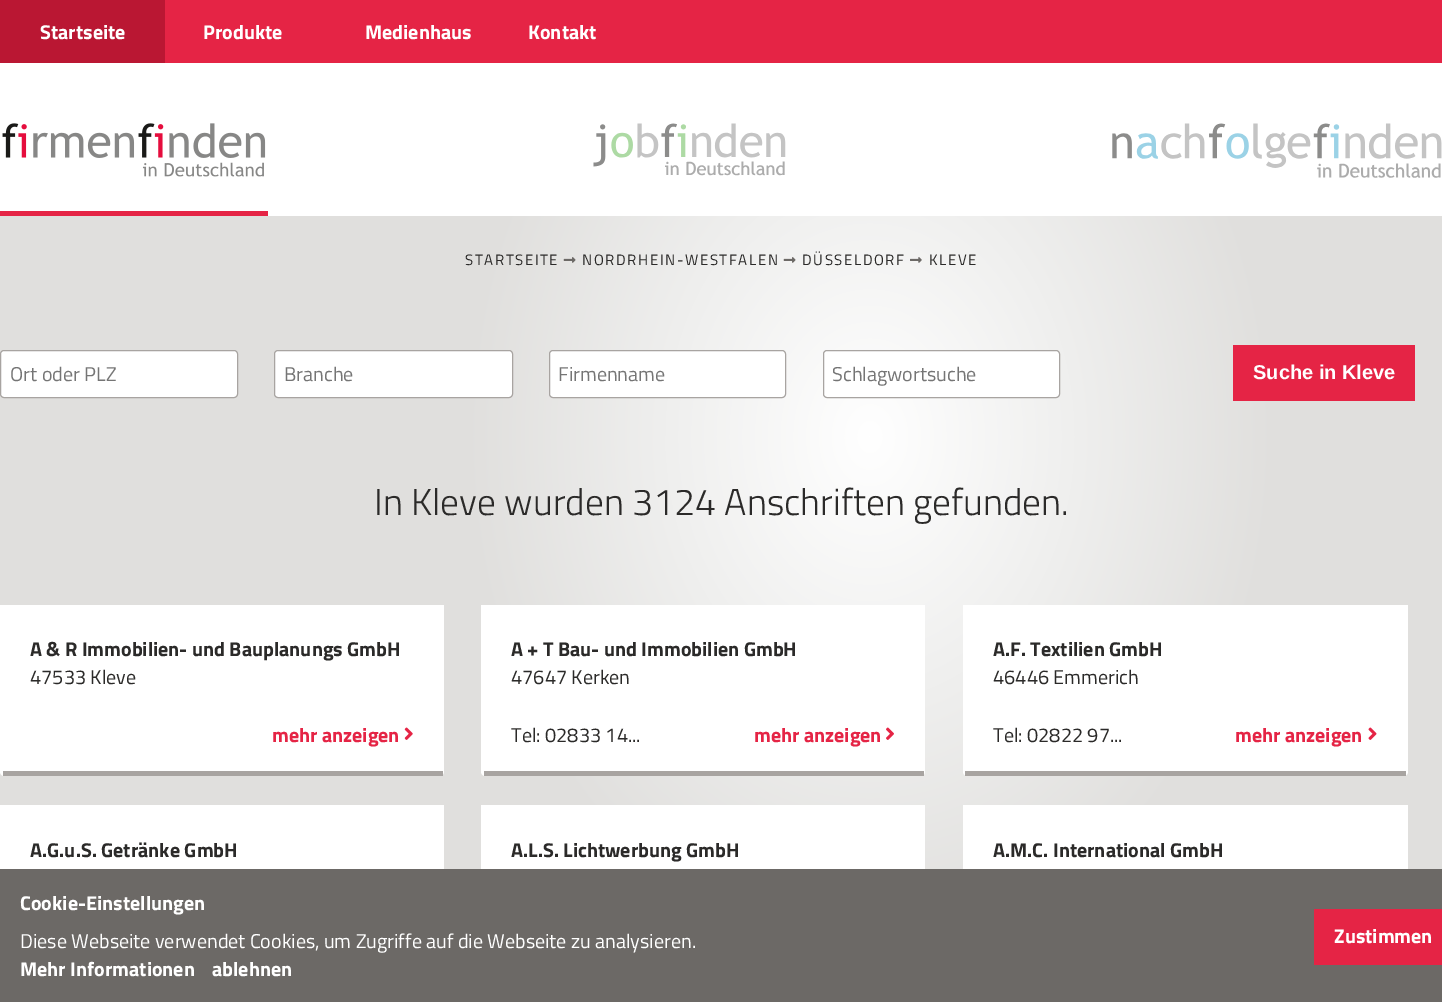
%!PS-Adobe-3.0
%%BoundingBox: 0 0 1442 1002
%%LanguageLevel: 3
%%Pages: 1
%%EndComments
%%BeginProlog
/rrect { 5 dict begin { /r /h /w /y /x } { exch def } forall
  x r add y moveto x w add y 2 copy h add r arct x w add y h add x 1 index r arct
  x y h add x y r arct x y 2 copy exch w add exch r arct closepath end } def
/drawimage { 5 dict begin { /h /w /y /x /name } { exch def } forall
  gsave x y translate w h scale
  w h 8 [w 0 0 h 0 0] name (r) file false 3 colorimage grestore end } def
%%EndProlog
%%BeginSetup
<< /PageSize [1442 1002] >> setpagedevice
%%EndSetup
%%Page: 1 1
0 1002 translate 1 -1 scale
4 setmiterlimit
1 setgray
0 0 1442 1002 rectfill
gsave newpath 0 216 moveto 1442 216 lineto 1442 869 lineto 0 869 lineto closepath clip newpath 870 437 translate 409 526 scale
<< /ShadingType 3 /ColorSpace /DeviceRGB /Coords [0 0 0 0 0 1] /Extend [true true] /Function << /FunctionType 2 /Domain [0 1] /C0 [1 1 1] /C1 [0.878 0.875 0.867] /N 1 >> >> shfill grestore
0.898 0.141 0.271 setrgbcolor
165 0 1277 63 rectfill
0.729 0.09 0.2 setrgbcolor
0 0 165 63 rectfill
0.898 0.141 0.271 setrgbcolor
0 211 268 5 rectfill
(images/1.raw) 2 123 264 54 drawimage
(images/2.raw) 593 123 193 53 drawimage
(images/3.raw) 1112 123 330 55 drawimage
(images/4.raw) 563 257 13 6 drawimage
(images/5.raw) 783 257 13 6 drawimage
(images/6.raw) 910 257 12 6 drawimage
1 setgray
0.5 350.5 237 47 3.5 rrect gsave fill grestore
0.659 0.643 0.631 setrgbcolor
stroke
1 setgray
274.5 350.5 238 47 3.5 rrect gsave fill grestore
0.659 0.643 0.631 setrgbcolor
stroke
1 setgray
549.5 350.5 236 47 3.5 rrect gsave fill grestore
0.659 0.643 0.631 setrgbcolor
stroke
1 setgray
823.5 350.5 236 47 3.5 rrect gsave fill grestore
0.659 0.643 0.631 setrgbcolor
stroke
0.898 0.141 0.271 setrgbcolor
1233 345 182 56 rectfill
1 setgray
newpath 0 605 moveto 444 605 lineto 444 772 lineto 444 774 442 776 440 776 curveto 4 776 lineto 2 776 0 774 0 772 curveto closepath fill
0.659 0.643 0.631 setrgbcolor
3 771 440 5 rectfill
(images/7.raw) 404 727 9 13 drawimage
1 setgray
newpath 481 605 moveto 925 605 lineto 925 772 lineto 925 774 923 776 921 776 curveto 485 776 lineto 483 776 481 774 481 772 curveto closepath fill
0.659 0.643 0.631 setrgbcolor
484 771 440 5 rectfill
(images/8.raw) 886 727 8 13 drawimage
1 setgray
newpath 963 605 moveto 1408 605 lineto 1408 772 lineto 1408 774 1406 776 1404 776 curveto 967 776 lineto 965 776 963 774 963 772 curveto closepath fill
0.659 0.643 0.631 setrgbcolor
965 771 441 5 rectfill
(images/9.raw) 1368 727 9 13 drawimage
1 setgray
0 805 444 64 rectfill
481 805 444 64 rectfill
963 805 445 64 rectfill
0.424 0.412 0.4 setrgbcolor
0 869 1442 133 rectfill
0.898 0.141 0.271 setrgbcolor
1314 909 128 56 rectfill
/TitilliumWeb-Bold [20 0 0 -20 0 0] selectfont
1 setgray
40 39 moveto (Startseite) show
203 39 moveto (Produkte) show
365 39 moveto (Medienhaus) show
528 39 moveto (Kontakt) show
/TitilliumWeb-Regular [15 0 0 -15 0 0] selectfont
0.169 0.165 0.161 setrgbcolor
465 265 moveto 1.6 0 (STARTSEITE) ashow
582 265 moveto 1.6 0 (NORDRHEIN-WESTFALEN) ashow
802 265 moveto 1.6 0 (DÜSSELDORF) ashow
929 265 moveto 1.6 0 (KLEVE) ashow
/TitilliumWeb-Regular [20 0 0 -20 0 0] selectfont
0.459 setgray
10 381 moveto (Ort oder PLZ) show
284 381 moveto (Branche) show
558 381 moveto (Firmenname) show
832 381 moveto (Schlagwortsuche) show
/LiberationSans-Bold [20 0 0 -20 0 0] selectfont
1 setgray
1253 379 moveto (Suche in Kleve) show
/TitilliumWeb-Light [37.5 0 0 -37.5 0 0] selectfont
0.169 0.165 0.161 setrgbcolor
374 515 moveto (In Kleve wurden 3124 Anschriften gefunden.) show
/TitilliumWeb-Bold [20 0 0 -20 0 0] selectfont
30 656 moveto (A & R Immobilien- und Bauplanungs GmbH) show
/TitilliumWeb-Regular [20 0 0 -20 0 0] selectfont
30 684 moveto (47533 Kleve) show
/TitilliumWeb-Bold [20 0 0 -20 0 0] selectfont
0.898 0.141 0.271 setrgbcolor
272 742 moveto (mehr anzeigen) show
0.169 0.165 0.161 setrgbcolor
511 656 moveto (A + T Bau- und Immobilien GmbH) show
/TitilliumWeb-Regular [20 0 0 -20 0 0] selectfont
511 684 moveto (47647 Kerken) show
511 742 moveto (Tel: 02833 14...) show
/TitilliumWeb-Bold [20 0 0 -20 0 0] selectfont
0.898 0.141 0.271 setrgbcolor
754 742 moveto (mehr anzeigen) show
0.169 0.165 0.161 setrgbcolor
993 656 moveto (A.F. Textilien GmbH) show
/TitilliumWeb-Regular [20 0 0 -20 0 0] selectfont
993 684 moveto (46446 Emmerich) show
993 742 moveto (Tel: 02822 97...) show
/TitilliumWeb-Bold [20 0 0 -20 0 0] selectfont
0.898 0.141 0.271 setrgbcolor
1235 742 moveto (mehr anzeigen) show
0.169 0.165 0.161 setrgbcolor
30 857 moveto (A.G.u.S. Getränke GmbH) show
511 857 moveto (A.L.S. Lichtwerbung GmbH) show
993 857 moveto (A.M.C. International GmbH) show
1 setgray
20 910 moveto (Cookie-Einstellungen) show
/TitilliumWeb-Regular [20 0 0 -20 0 0] selectfont
20 948 moveto (Diese Webseite verwendet Cookies, um Zugriffe auf die Webseite zu analysieren.) show
/TitilliumWeb-Bold [20 0 0 -20 0 0] selectfont
20 976 moveto (Mehr Informationen) show
212 976 moveto (ablehnen) show
1334 943 moveto (Zustimmen) show
showpage
%%EOF
